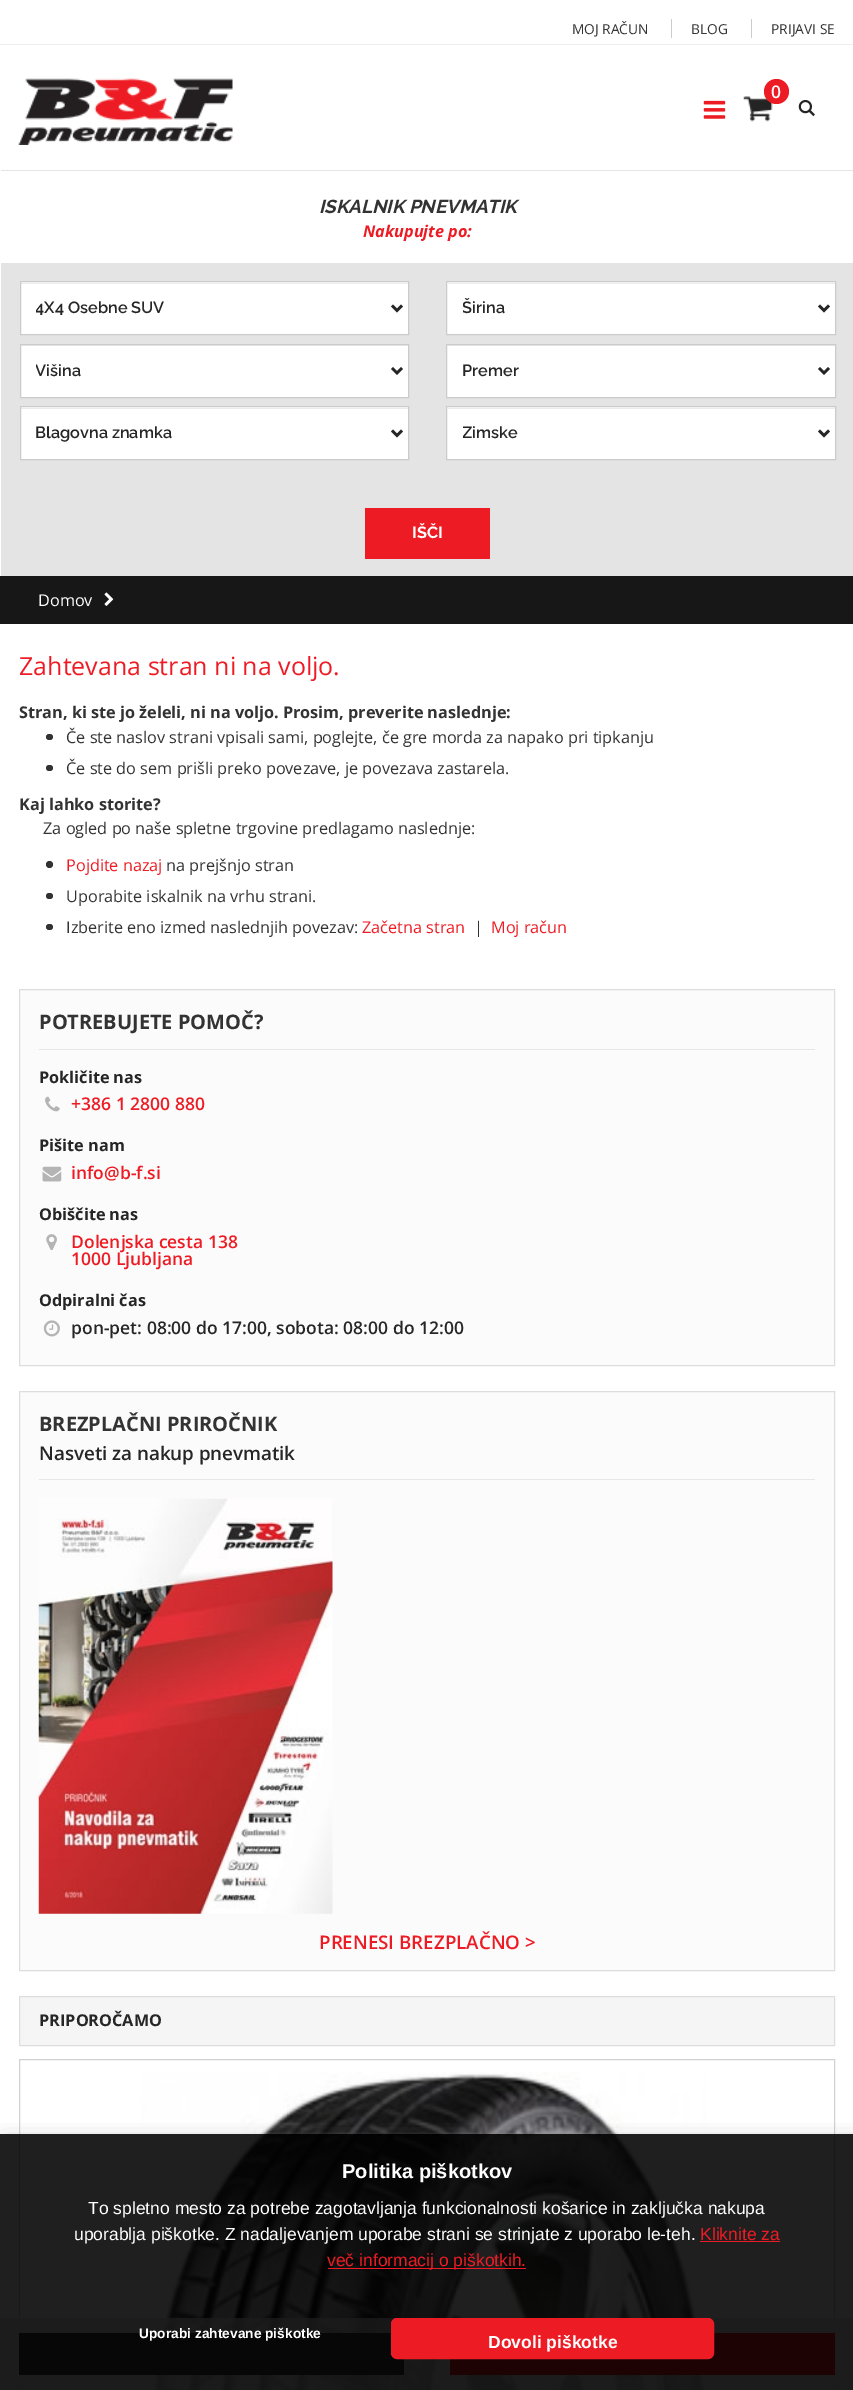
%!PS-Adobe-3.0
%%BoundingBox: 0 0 853 2390
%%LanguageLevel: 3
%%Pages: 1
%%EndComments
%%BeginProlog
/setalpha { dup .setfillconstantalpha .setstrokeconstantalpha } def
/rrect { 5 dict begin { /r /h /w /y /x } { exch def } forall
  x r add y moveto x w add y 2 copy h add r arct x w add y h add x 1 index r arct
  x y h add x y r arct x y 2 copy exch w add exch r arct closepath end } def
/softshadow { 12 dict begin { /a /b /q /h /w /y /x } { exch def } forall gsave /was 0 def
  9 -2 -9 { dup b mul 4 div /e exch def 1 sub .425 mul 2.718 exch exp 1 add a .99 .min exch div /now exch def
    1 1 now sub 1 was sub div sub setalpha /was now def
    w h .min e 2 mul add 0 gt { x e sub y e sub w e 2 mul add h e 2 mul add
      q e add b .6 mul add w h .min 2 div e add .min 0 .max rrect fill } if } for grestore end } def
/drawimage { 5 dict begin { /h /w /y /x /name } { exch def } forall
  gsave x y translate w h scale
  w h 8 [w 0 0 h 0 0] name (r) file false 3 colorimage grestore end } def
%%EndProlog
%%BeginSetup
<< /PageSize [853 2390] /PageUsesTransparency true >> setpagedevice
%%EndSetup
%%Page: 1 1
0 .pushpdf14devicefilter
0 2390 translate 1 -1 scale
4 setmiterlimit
1 setgray
0 0 853 2390 rectfill
0.933 setgray
0 44 853 1 rectfill
0.8 setgray
671 19 1 19 rectfill
751 19 1 19 rectfill
0.82 setgray
19.5 2059.5 815 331 rectstroke
(images/11.raw) 141 2072 566 318 drawimage
0.76 setalpha
0.894 setgray
0 2318 853 72 rectfill
1 setalpha
0.224 setgray
19 2333 385 42 rectfill
0.929 0.11 0.141 setrgbcolor
450 2333 385 42 rectfill
(images/1.raw) 18 78 215 67 drawimage
(images/2.raw) 743 96 30 26 drawimage
newpath 776.5 91.5 12.5 0 360 arc closepath fill
(images/3.raw) 798 100 17 17 drawimage
(images/4.raw) 703 100 23 19 drawimage
0.894 setgray
1 170 852 406 rectfill
1 setgray
1 171 852 92 rectfill
21 282 387 52 rectfill
0.925 setgray
21 283 387 1 rectfill
0.796 setgray
20.5 281.5 388 53 rectstroke
0.145 setgray
2.5 setlinewidth
newpath 392 305.5 moveto 397 310.5 lineto 402 305.5 lineto stroke
1 setgray
447 282 388 52 rectfill
0.925 setgray
448 283 387 1 rectfill
0.796 setgray
1 setlinewidth
446.5 281.5 389 53 rectstroke
0.145 setgray
2.5 setlinewidth
newpath 819 305.5 moveto 824 310.5 lineto 829 305.5 lineto stroke
1 setgray
21 346 387 51 rectfill
0.925 setgray
21 345 387 1 rectfill
0.796 setgray
1 setlinewidth
20.5 344.5 388 53 rectstroke
0.145 setgray
2.5 setlinewidth
newpath 392 368 moveto 397 373 lineto 402 368 lineto stroke
1 setgray
447 345 388 52 rectfill
0.925 setgray
448 345 387 1 rectfill
0.796 setgray
1 setlinewidth
446.5 344.5 389 53 rectstroke
0.145 setgray
2.5 setlinewidth
newpath 819 368 moveto 824 373 lineto 829 368 lineto stroke
1 setgray
21 407 387 52 rectfill
0.925 setgray
21 408 387 1 rectfill
0.796 setgray
1 setlinewidth
20.5 406.5 388 53 rectstroke
0.145 setgray
2.5 setlinewidth
newpath 392 430.5 moveto 397 435.5 lineto 402 430.5 lineto stroke
1 setgray
447 407 388 52 rectfill
0.925 setgray
448 408 387 1 rectfill
0.796 setgray
1 setlinewidth
446.5 406.5 389 53 rectstroke
0.145 setgray
2.5 setlinewidth
newpath 819 430.5 moveto 824 435.5 lineto 829 430.5 lineto stroke
0.929 0.11 0.141 setrgbcolor
365 508 125 51 rectfill
0.09 setgray
0 576 853 48 rectfill
(images/5.raw) 104 592 10 14 drawimage
0.2 setgray
46 734 7 6 3 rrect fill
46 765 7 6 3 rrect fill
newpath 49.5 864.5 3.5 0 360 arc closepath fill
46 893 7 6 3 rrect fill
46 924 7 6 3 rrect fill
0.984 setgray
newpath 19.5 989.5 moveto 834.5 989.5 lineto 834.5 1365.5 lineto 19.5 1365.5 lineto closepath gsave fill grestore
0.867 setgray
1 setlinewidth
stroke
0.902 setgray
39 1049 776 1 rectfill
(images/6.raw) 45 1096 15 16 drawimage
(images/7.raw) 42 1166 20 16 drawimage
(images/8.raw) 46 1234 11 17 drawimage
(images/9.raw) 43 1320 17 17 drawimage
0.984 setgray
newpath 19.5 1391.5 moveto 834.5 1391.5 lineto 834.5 1970.5 lineto 19.5 1970.5 lineto closepath gsave fill grestore
0.867 setgray
stroke
0.902 setgray
39 1479 776 1 rectfill
(images/10.raw) 38 1498 295 416 drawimage
0.961 setgray
newpath 19.5 1996.5 moveto 834.5 1996.5 lineto 834.5 2045.5 lineto 19.5 2045.5 lineto closepath gsave fill grestore
0.867 setgray
stroke
gsave
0 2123 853 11 rectclip
0.533 setgray
6 2146 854 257 0 11 1 softshadow
grestore
0.88 setalpha
0 setgray
0 2134 853 256 rectfill
1 setalpha
0.929 0.11 0.141 setrgbcolor
700 2241 80 1 rectfill
328 2268 198 1 rectfill
391.5 2318.5 322 40 5.5 rrect gsave fill grestore
stroke
/OpenSans-Regular [13.75 0 0 -13.75 0 0] selectfont
0.2 setgray
572 34 moveto (MOJ RAČUN) show
691 34 moveto (BLOG) show
771 34 moveto (PRIJAVI SE) show
/OpenSans-SemiBold [17.5 0 0 -17.5 0 0] selectfont
1 setgray
771 98 moveto (0) show
/Raleway-BoldItalic [18.75 0 0 -18.75 0 0] selectfont
0.2 setgray
319 213 moveto (ISKALNIK PNEVMATIK) show
/OpenSans-BoldItalic [16.25 0 0 -16.25 0 0] selectfont
0.929 0.11 0.141 setrgbcolor
363 237 moveto (Nakupujte po:) show
gsave
36 298 342 21 rectclip
/Raleway-SemiBold [16.25 0 0 -16.25 0 0] selectfont
0.149 setgray
35 313 moveto (4X4 Osebne SUV) show
grestore
gsave
463 298 342 21 rectclip
/Raleway-SemiBold [16.25 0 0 -16.25 0 0] selectfont
0.149 setgray
462 313 moveto (Širina) show
grestore
gsave
36 360 342 21 rectclip
/Raleway-SemiBold [16.25 0 0 -16.25 0 0] selectfont
0.149 setgray
35 376 moveto (Višina) show
grestore
/Raleway-SemiBold [16.25 0 0 -16.25 0 0] selectfont
0.149 setgray
462 376 moveto (Premer) show
35 438 moveto (Blagovna znamka) show
gsave
463 423 342 21 rectclip
462 438 moveto (Zimske) show
grestore
/Raleway-Bold [16.25 0 0 -16.25 0 0] selectfont
1 setgray
412 538 moveto (IŠČI) show
/OpenSans-Regular [16.25 0 0 -16.25 0 0] selectfont
38 606 moveto (Domov) show
/OpenSans-Regular [25 0 0 -25 0 0] selectfont
0.929 0.11 0.141 setrgbcolor
19 675 moveto (Zahtevana stran ni na voljo.) show
/OpenSans-Bold [16.25 0 0 -16.25 0 0] selectfont
0.2 setgray
19 718 moveto (Stran, ki ste jo želeli, ni na voljo. Prosim, preverite naslednje:) show
/OpenSans-Regular [16.25 0 0 -16.25 0 0] selectfont
66 743 moveto (Če ste naslov strani vpisali sami, poglejte, če gre morda za napako pri tipkanju) show
66 774 moveto (Če ste do sem prišli preko povezave, je povezava zastarela.) show
/OpenSans-Bold [16.25 0 0 -16.25 0 0] selectfont
19 810 moveto (Kaj lahko storite?) show
/OpenSans-Regular [16.25 0 0 -16.25 0 0] selectfont
43 834 moveto (Za ogled po naše spletne trgovine predlagamo naslednje:) show
0.929 0.11 0.141 setrgbcolor
66 871 moveto (Pojdite nazaj) show
0.2 setgray
166 871 moveto (na prejšnjo stran) show
66 902 moveto (Uporabite iskalnik na vrhu strani.) show
66 933 moveto (Izberite eno izmed naslednjih povezav:) show
0.929 0.11 0.141 setrgbcolor
362 933 moveto (Začetna stran) show
0.2 setgray
474 933 moveto (|) show
0.929 0.11 0.141 setrgbcolor
491 933 moveto (Moj račun) show
/OpenSans-Bold [20 0 0 -20 0 0] selectfont
0.2 setgray
39 1029 moveto (POTREBUJETE POMOČ?) show
/OpenSans-Bold [16.25 0 0 -16.25 0 0] selectfont
0.149 setgray
39 1083 moveto (Pokličite nas) show
/OpenSans-SemiBold [17.5 0 0 -17.5 0 0] selectfont
0.929 0.11 0.141 setrgbcolor
71 1110 moveto (+386 1 2800 880) show
/OpenSans-Bold [16.25 0 0 -16.25 0 0] selectfont
0.149 setgray
39 1151 moveto (Pišite nam) show
/OpenSans-SemiBold [17.5 0 0 -17.5 0 0] selectfont
0.929 0.11 0.141 setrgbcolor
71 1179 moveto (info@b-f.si) show
/OpenSans-Bold [16.25 0 0 -16.25 0 0] selectfont
0.149 setgray
39 1220 moveto (Obiščite nas) show
/OpenSans-SemiBold [17.5 0 0 -17.5 0 0] selectfont
0.929 0.11 0.141 setrgbcolor
71 1248 moveto (Dolenjska cesta 138) show
71 1265 moveto (1000 Ljubljana) show
/OpenSans-Bold [16.25 0 0 -16.25 0 0] selectfont
0.149 setgray
39 1306 moveto (Odpiralni čas) show
/OpenSans-SemiBold [17.5 0 0 -17.5 0 0] selectfont
71 1334 moveto (pon-pet: 08:00 do 17:00, sobota: 08:00 do 12:00) show
/OpenSans-Bold [20 0 0 -20 0 0] selectfont
0.2 setgray
39 1431 moveto (BREZPLAČNI PRIROČNIK) show
/OpenSans-SemiBold [18.75 0 0 -18.75 0 0] selectfont
0.149 setgray
39 1460 moveto (Nasveti za nakup pnevmatik) show
0.929 0.11 0.141 setrgbcolor
319 1949 moveto (PRENESI BREZPLAČNO >) show
/OpenSans-Bold [16.25 0 0 -16.25 0 0] selectfont
0.149 setgray
39 2026 moveto (PRIPOROČAMO) show
/LiberationSans-Bold [20 0 0 -20 0 0] selectfont
1 setgray
342 2178 moveto (Politika piškotkov) show
/LiberationSans-Regular [17.5 0 0 -17.5 0 0] selectfont
88 2214 moveto (To spletno mesto za potrebe zagotavljanja funkcionalnosti košarice in zaključka nakupa) show
74 2240 moveto (uporablja piškotke. Z nadaljevanjem uporabe strani se strinjate z uporabo le-teh.) show
0.929 0.11 0.141 setrgbcolor
700 2240 moveto (Kliknite za) show
327 2266 moveto (več informacij o piškotkih.) show
/LiberationSans-Bold [13.75 0 0 -13.75 0 0] selectfont
1 setgray
139 2338 moveto (Uporabi zahtevane piškotke) show
/LiberationSans-Bold [17.5 0 0 -17.5 0 0] selectfont
488 2348 moveto (Dovoli piškotke) show
.poppdf14devicefilter showpage
%%EOF
